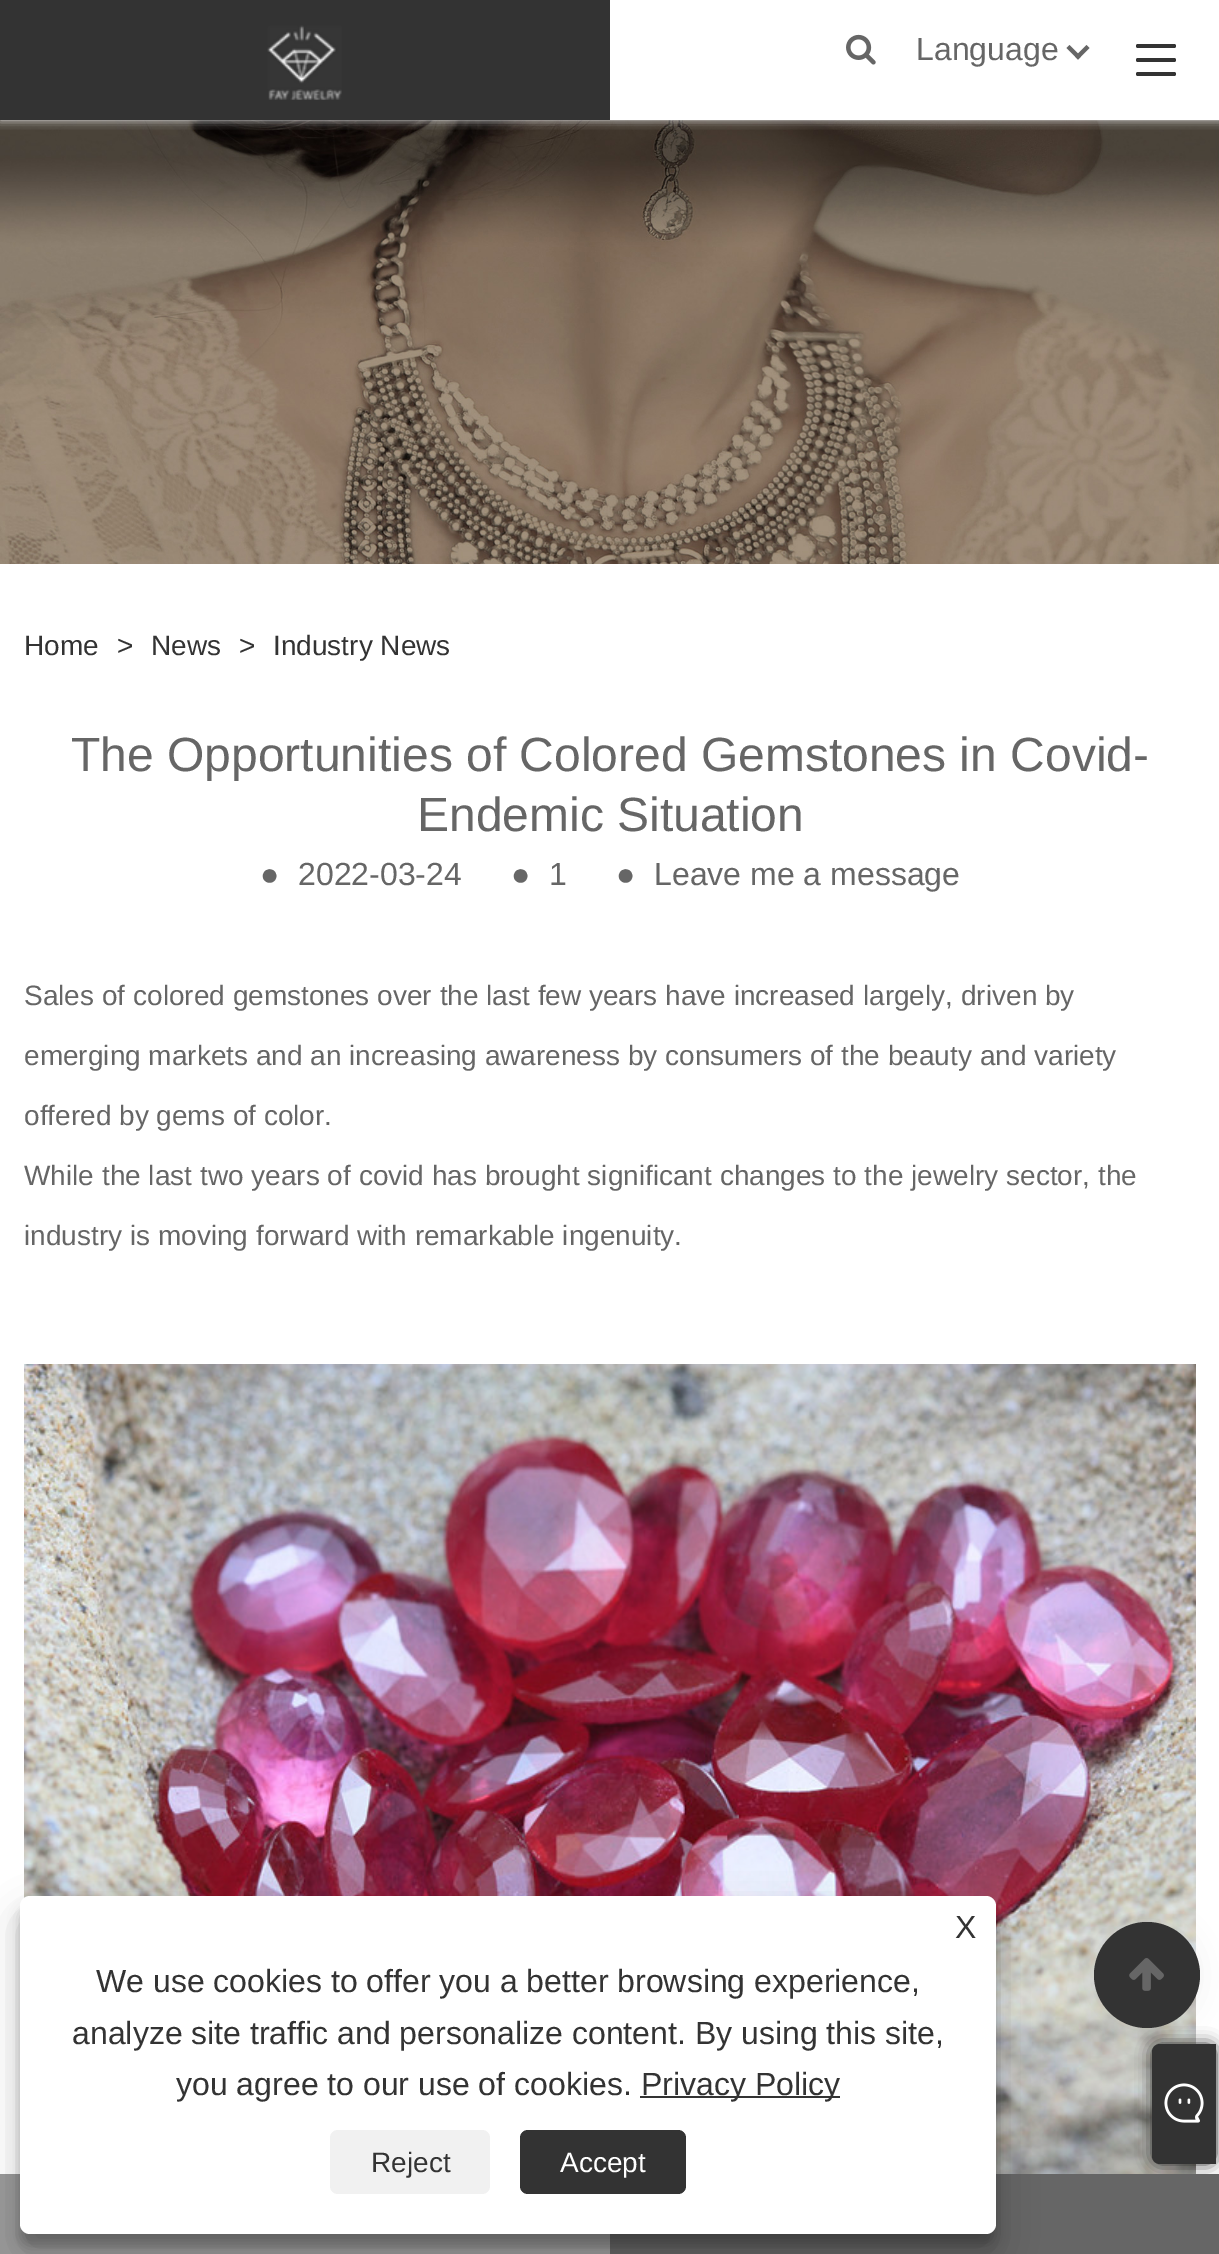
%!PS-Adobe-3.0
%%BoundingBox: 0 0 1219 2254
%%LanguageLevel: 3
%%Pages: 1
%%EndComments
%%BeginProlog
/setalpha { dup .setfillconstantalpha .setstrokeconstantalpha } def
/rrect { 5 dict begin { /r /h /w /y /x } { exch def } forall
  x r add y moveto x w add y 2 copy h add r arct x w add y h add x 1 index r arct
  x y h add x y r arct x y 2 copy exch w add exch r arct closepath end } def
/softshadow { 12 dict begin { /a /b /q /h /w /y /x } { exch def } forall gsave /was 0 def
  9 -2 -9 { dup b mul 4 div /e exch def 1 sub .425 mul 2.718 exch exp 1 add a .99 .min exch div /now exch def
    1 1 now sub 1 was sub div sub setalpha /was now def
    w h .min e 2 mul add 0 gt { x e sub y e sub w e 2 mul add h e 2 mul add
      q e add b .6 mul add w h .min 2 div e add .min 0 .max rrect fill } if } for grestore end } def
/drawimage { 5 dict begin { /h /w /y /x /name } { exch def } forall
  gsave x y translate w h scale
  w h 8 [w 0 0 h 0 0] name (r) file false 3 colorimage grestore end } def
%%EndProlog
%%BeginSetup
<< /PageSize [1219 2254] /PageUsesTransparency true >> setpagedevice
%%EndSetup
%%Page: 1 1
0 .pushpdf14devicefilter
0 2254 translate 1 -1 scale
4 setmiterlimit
1 setgray
0 0 1219 2254 rectfill
(images/3.raw) 0 120 1219 444 drawimage
gsave
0 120 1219 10 rectclip
0.933 setgray
0 0 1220 120 0 5 1 softshadow
grestore
0.2 setgray
0 0 610 120 rectfill
(images/1.raw) 267 25 75 75 drawimage
(images/2.raw) 846 34 30 31 drawimage
0.4 setgray
newpath 1075 56.5 moveto 1086.5 45 lineto 1089.5 48 lineto 1078 59.5 lineto closepath fill
newpath 1066.5 48 moveto 1069.5 45 lineto 1081 56.5 lineto 1078 59.5 lineto closepath fill
0.2 setgray
1136 44 40 4 2 rrect fill
1136 58 40 4 2 rrect fill
1136 72 40 4 2 rrect fill
(images/4.raw) 24 1364 1172 810 drawimage
0.6 setgray
0 2174 610 80 rectfill
0 setgray
1094 1922 106 106 53 15 0.05 softshadow
0.2 setgray
newpath 1147 1975 53 0 360 arc closepath fill
1152 2044 64 120 8 8 1 softshadow
0.4 setgray
610 2174 609 80 rectfill
0 setgray
20 1908 976 338 10 6 0.23 softshadow
20 1916 976 338 10 20 0.19 softshadow
1 setgray
20 1896 976 338 10 rrect fill
0.2 setgray
640 2096 200 2 rectfill
0.945 setgray
330 2130 160 64 8 rrect fill
0.2 setgray
520 2130 166 64 8 rrect fill
(images/5.raw) 1129 1958 35 33 drawimage
newpath 1160 2044 moveto 1216 2044 lineto 1216 2164 lineto 1160 2164 lineto 1155.5 2164 1152 2160.5 1152 2156 curveto 1152 2052 lineto 1152 2047.5 1155.5 2044 1160 2044 curveto closepath fill
(images/6.raw) 1164 2083 40 40 drawimage
/LiberationSans-Regular [32 0 0 -32 0 0] selectfont
0.4 setgray
916 60 moveto (Language) show
/LiberationSans-Regular [28 0 0 -28 0 0] selectfont
0.2 setgray
24 655 moveto (Home) show
117 655 moveto (>) show
151 655 moveto (News) show
239 655 moveto (>) show
273 655 moveto (Industry News) show
/LiberationSans-Regular [48 0 0 -48 0 0] selectfont
0.4 setgray
71 771 moveto (The Opportunities of Colored Gemstones in Covid-) show
417 831 moveto (Endemic Situation) show
/LiberationSans-Regular [32 0 0 -32 0 0] selectfont
260 885 moveto (●) show
298 885 moveto (2022-03-24) show
511 885 moveto (●) show
549 885 moveto (1) show
616 885 moveto (●) show
654 885 moveto (Leave me a message) show
/LiberationSans-Regular [28 0 0 -28 0 0] selectfont
24 1005 moveto (Sales of colored gemstones over the last few years have increased largely, driven by) show
24 1065 moveto (emerging markets and an increasing awareness by consumers of the beauty and variety) show
24 1125 moveto (offered by gems of color.) show
24 1185 moveto (While the last two years of covid has brought significant changes to the jewelry sector, the) show
24 1245 moveto (industry is moving forward with remarkable ingenuity.) show
/LiberationSans-Regular [32 0 0 -32 0 0] selectfont
0.2 setgray
955 1938 moveto (X) show
96 1992 moveto (We use cookies to offer you a better browsing experience,) show
72 2044 moveto (analyze site traffic and personalize content. By using this site,) show
176 2095 moveto (you agree to our use of cookies.) show
641 2095 moveto (Privacy Policy) show
/LiberationSans-Regular [28 0 0 -28 0 0] selectfont
371 2172 moveto (Reject) show
1 setgray
560 2172 moveto (Accept) show
.poppdf14devicefilter showpage
%%EOF
